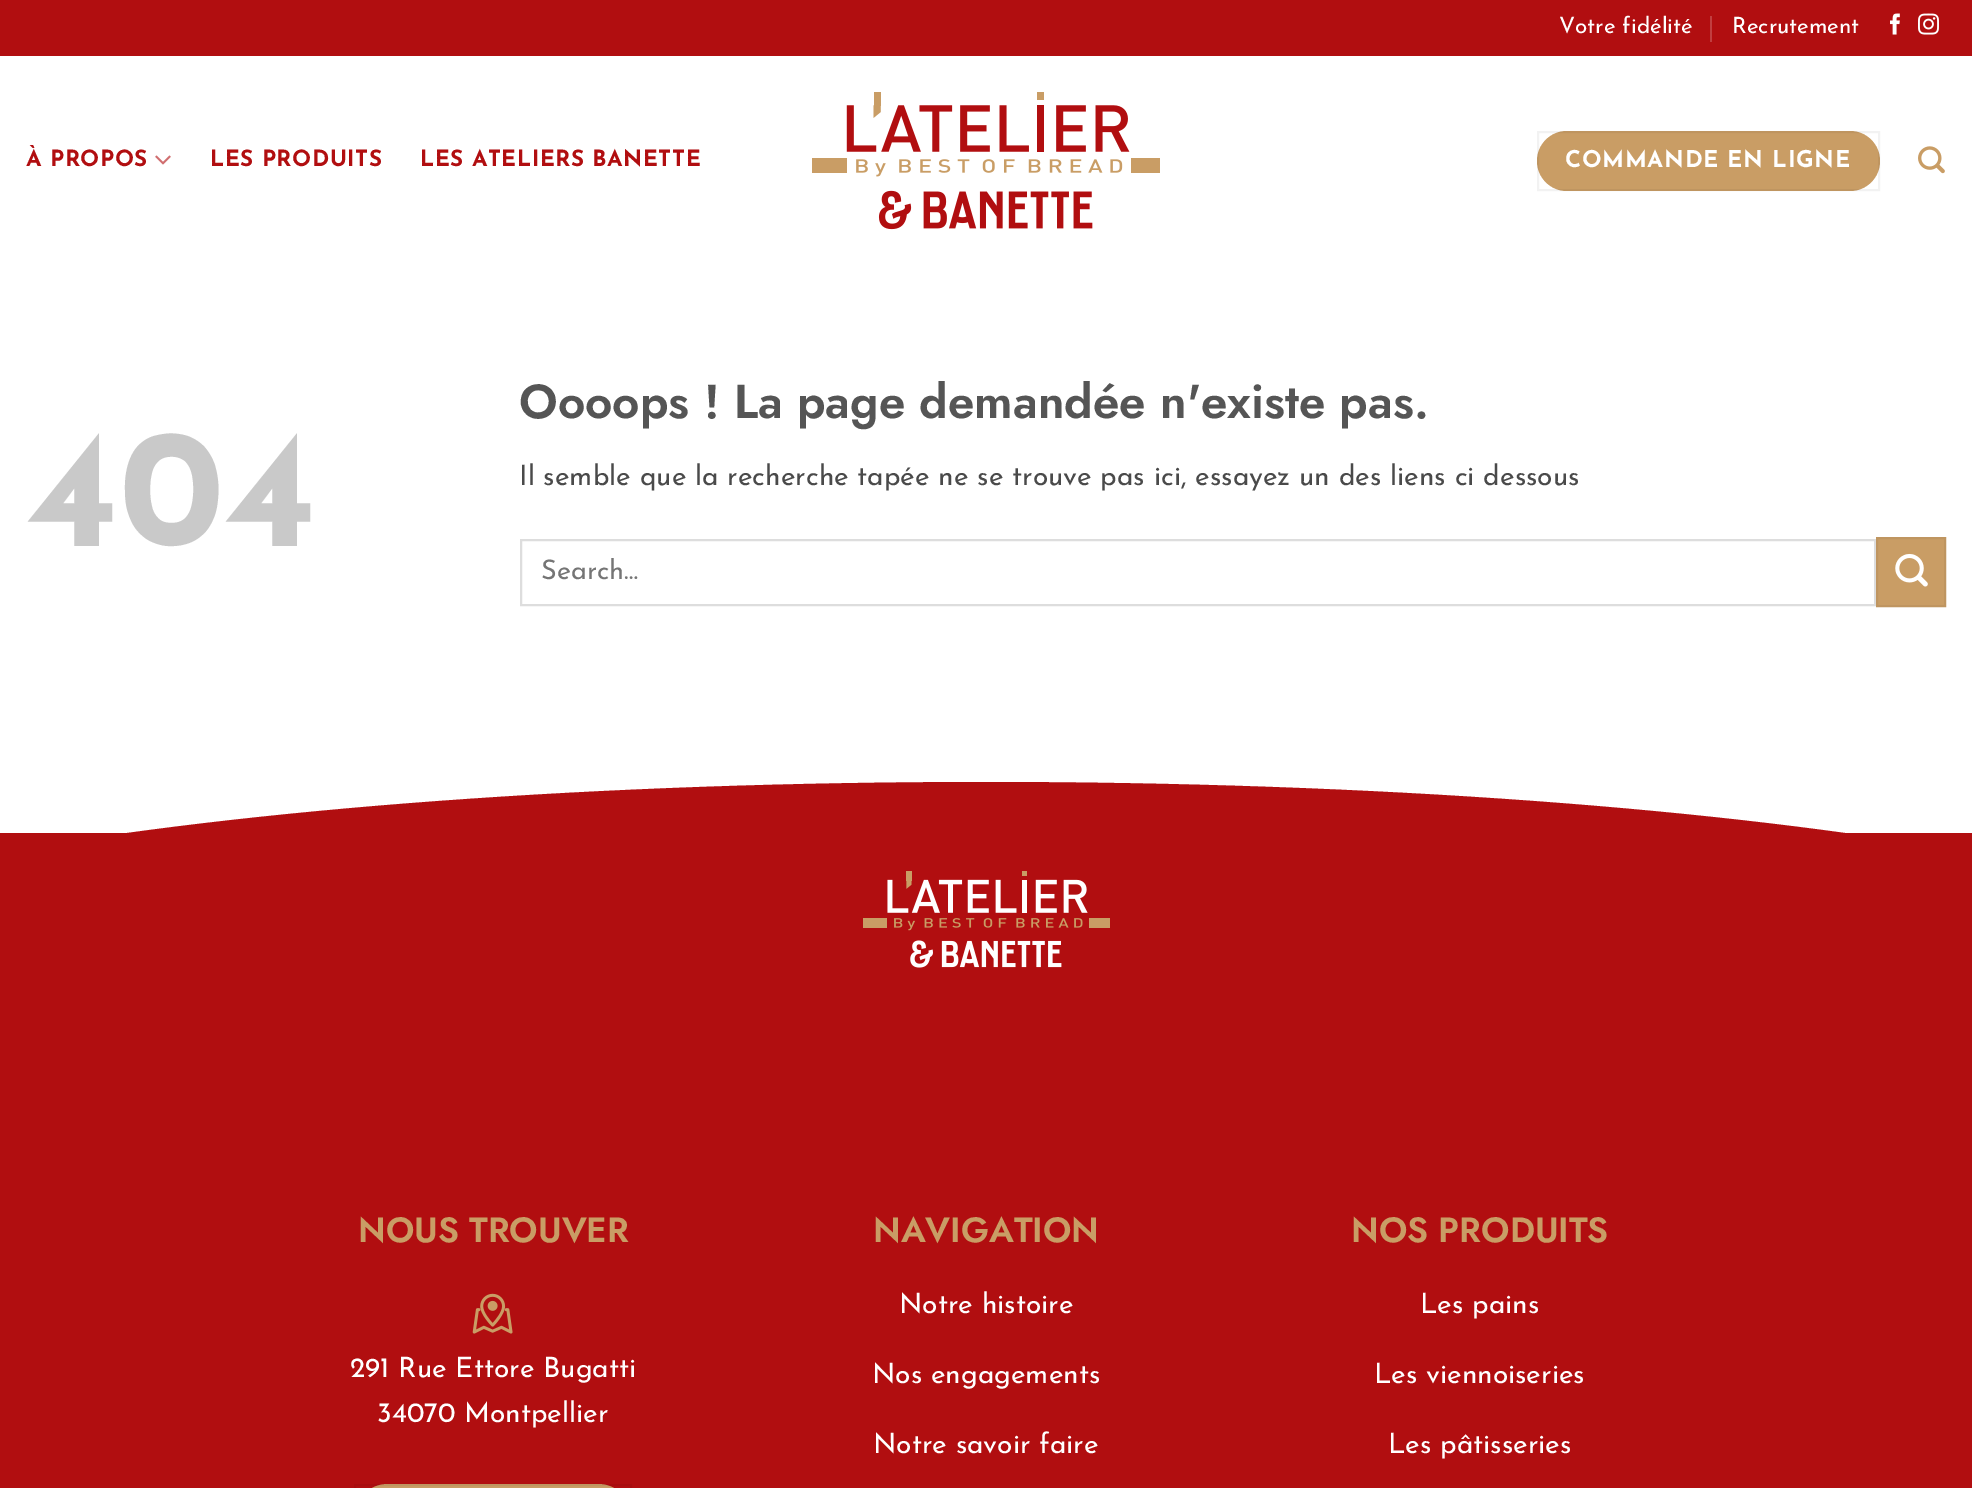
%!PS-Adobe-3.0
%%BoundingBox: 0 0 1972 1488
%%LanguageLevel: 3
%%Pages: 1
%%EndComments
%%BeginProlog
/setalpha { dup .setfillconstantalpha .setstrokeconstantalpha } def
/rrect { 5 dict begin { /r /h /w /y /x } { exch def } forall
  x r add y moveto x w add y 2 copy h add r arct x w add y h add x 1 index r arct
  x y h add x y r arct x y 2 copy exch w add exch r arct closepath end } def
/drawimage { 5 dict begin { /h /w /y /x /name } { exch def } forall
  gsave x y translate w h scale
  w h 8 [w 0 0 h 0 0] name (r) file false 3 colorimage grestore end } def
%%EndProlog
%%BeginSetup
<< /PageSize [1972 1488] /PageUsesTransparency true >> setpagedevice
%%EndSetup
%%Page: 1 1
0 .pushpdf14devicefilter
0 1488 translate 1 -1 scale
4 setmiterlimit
1 setgray
0 0 1972 1488 rectfill
0.694 0.055 0.063 setrgbcolor
0 0 1972 56 rectfill
0.757 0.243 0.251 setrgbcolor
1710 16 2 26 rectfill
(images/1.raw) 1890 13 10 22 drawimage
(images/2.raw) 1918 13 21 22 drawimage
(images/3.raw) 155 155 16 10 drawimage
(images/4.raw) 812 92 348 138 drawimage
0.788 0.616 0.396 setrgbcolor
1537 131 343 60 30 rrect fill
0.05 setalpha
0 setgray
2 setlinewidth
1538 132 341 58 rectstroke
1 setalpha
(images/5.raw) 1918 146 27 28 drawimage
0.867 setgray
521 540 1354 65 rectstroke
0.788 0.616 0.396 setrgbcolor
newpath 1877 538 moveto 1945 538 lineto 1945 606 lineto 1877 606 lineto closepath gsave fill grestore
0.749 0.584 0.376 setrgbcolor
stroke
(images/6.raw) 1895 553 33 34 drawimage
0.694 0.055 0.063 setrgbcolor
newpath 0 853 moveto 0 900 lineto 1972 900 lineto 1972 853 lineto 1727 809 1376 782 986 782 curveto 596 782 245 809 0 853 curveto closepath fill
0 833 1972 655 rectfill
(images/7.raw) 863 871 247 97 drawimage
(images/8.raw) 472 1293 41 41 drawimage
0.788 0.616 0.396 setrgbcolor
354 1484 278 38 34 rrect fill
0.05 setalpha
0 setgray
355 1485 276 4 rectstroke
/JosefinSans-Regular [22.4 0 0 -22.4 0 0] selectfont
1 setalpha
1 setgray
1559 33 moveto (Votre fidélité) show
1732 33 moveto (Recrutement) show
/JosefinSans-Bold [22.4 0 0 -22.4 0 0] selectfont
0.694 0.055 0.063 setrgbcolor
26 166 moveto 0.5 0 (À PROPOS) ashow
210 166 moveto 0.5 0 (LES PRODUITS) ashow
420 166 moveto 0.5 0 (LES ATELIERS BANETTE) ashow
/JosefinSans-Bold [23.1 0 0 -23.1 0 0] selectfont
1 setgray
1565 167 moveto 0.7 0 (COMMANDE EN LIGNE) ashow
/JosefinSans-Bold [168 0 0 -168 0 0] selectfont
0.788 setgray
26 546 moveto (404) show
/Jost-SemiBold [47.6 0 0 -47.6 0 0] selectfont
0.333 setgray
519 418 moveto (Oooops ! La page demandée n'existe pas.) show
/JosefinSans-Regular [28 0 0 -28 0 0] selectfont
0.29 setgray
519 485 moveto (Il semble que la recherche tapée ne se trouve pas ici, essayez un des liens ci dessous) show
/JosefinSans-Regular [27 0 0 -27 0 0] selectfont
0.459 setgray
541 579 moveto (Search…) show
/Jost-SemiBold [35 0 0 -35 0 0] selectfont
0.788 0.616 0.396 setrgbcolor
358 1242 moveto (NOUS TROUVER) show
/JosefinSans-Regular [28 0 0 -28 0 0] selectfont
1 setgray
350 1377 moveto (291 Rue Ettore Bugatti) show
377 1422 moveto (34070 Montpellier) show
/Jost-SemiBold [35 0 0 -35 0 0] selectfont
0.788 0.616 0.396 setrgbcolor
873 1242 moveto (NAVIGATION) show
/JosefinSans-Regular [28 0 0 -28 0 0] selectfont
1 setgray
899 1313 moveto (Notre histoire) show
872 1383 moveto (Nos engagements) show
873 1453 moveto (Notre savoir faire) show
/Jost-SemiBold [35 0 0 -35 0 0] selectfont
0.788 0.616 0.396 setrgbcolor
1351 1242 moveto (NOS PRODUITS) show
/JosefinSans-Regular [28 0 0 -28 0 0] selectfont
1 setgray
1420 1313 moveto (Les pains) show
1374 1383 moveto (Les viennoiseries) show
1388 1453 moveto (Les pâtisseries) show
.poppdf14devicefilter showpage
%%EOF
